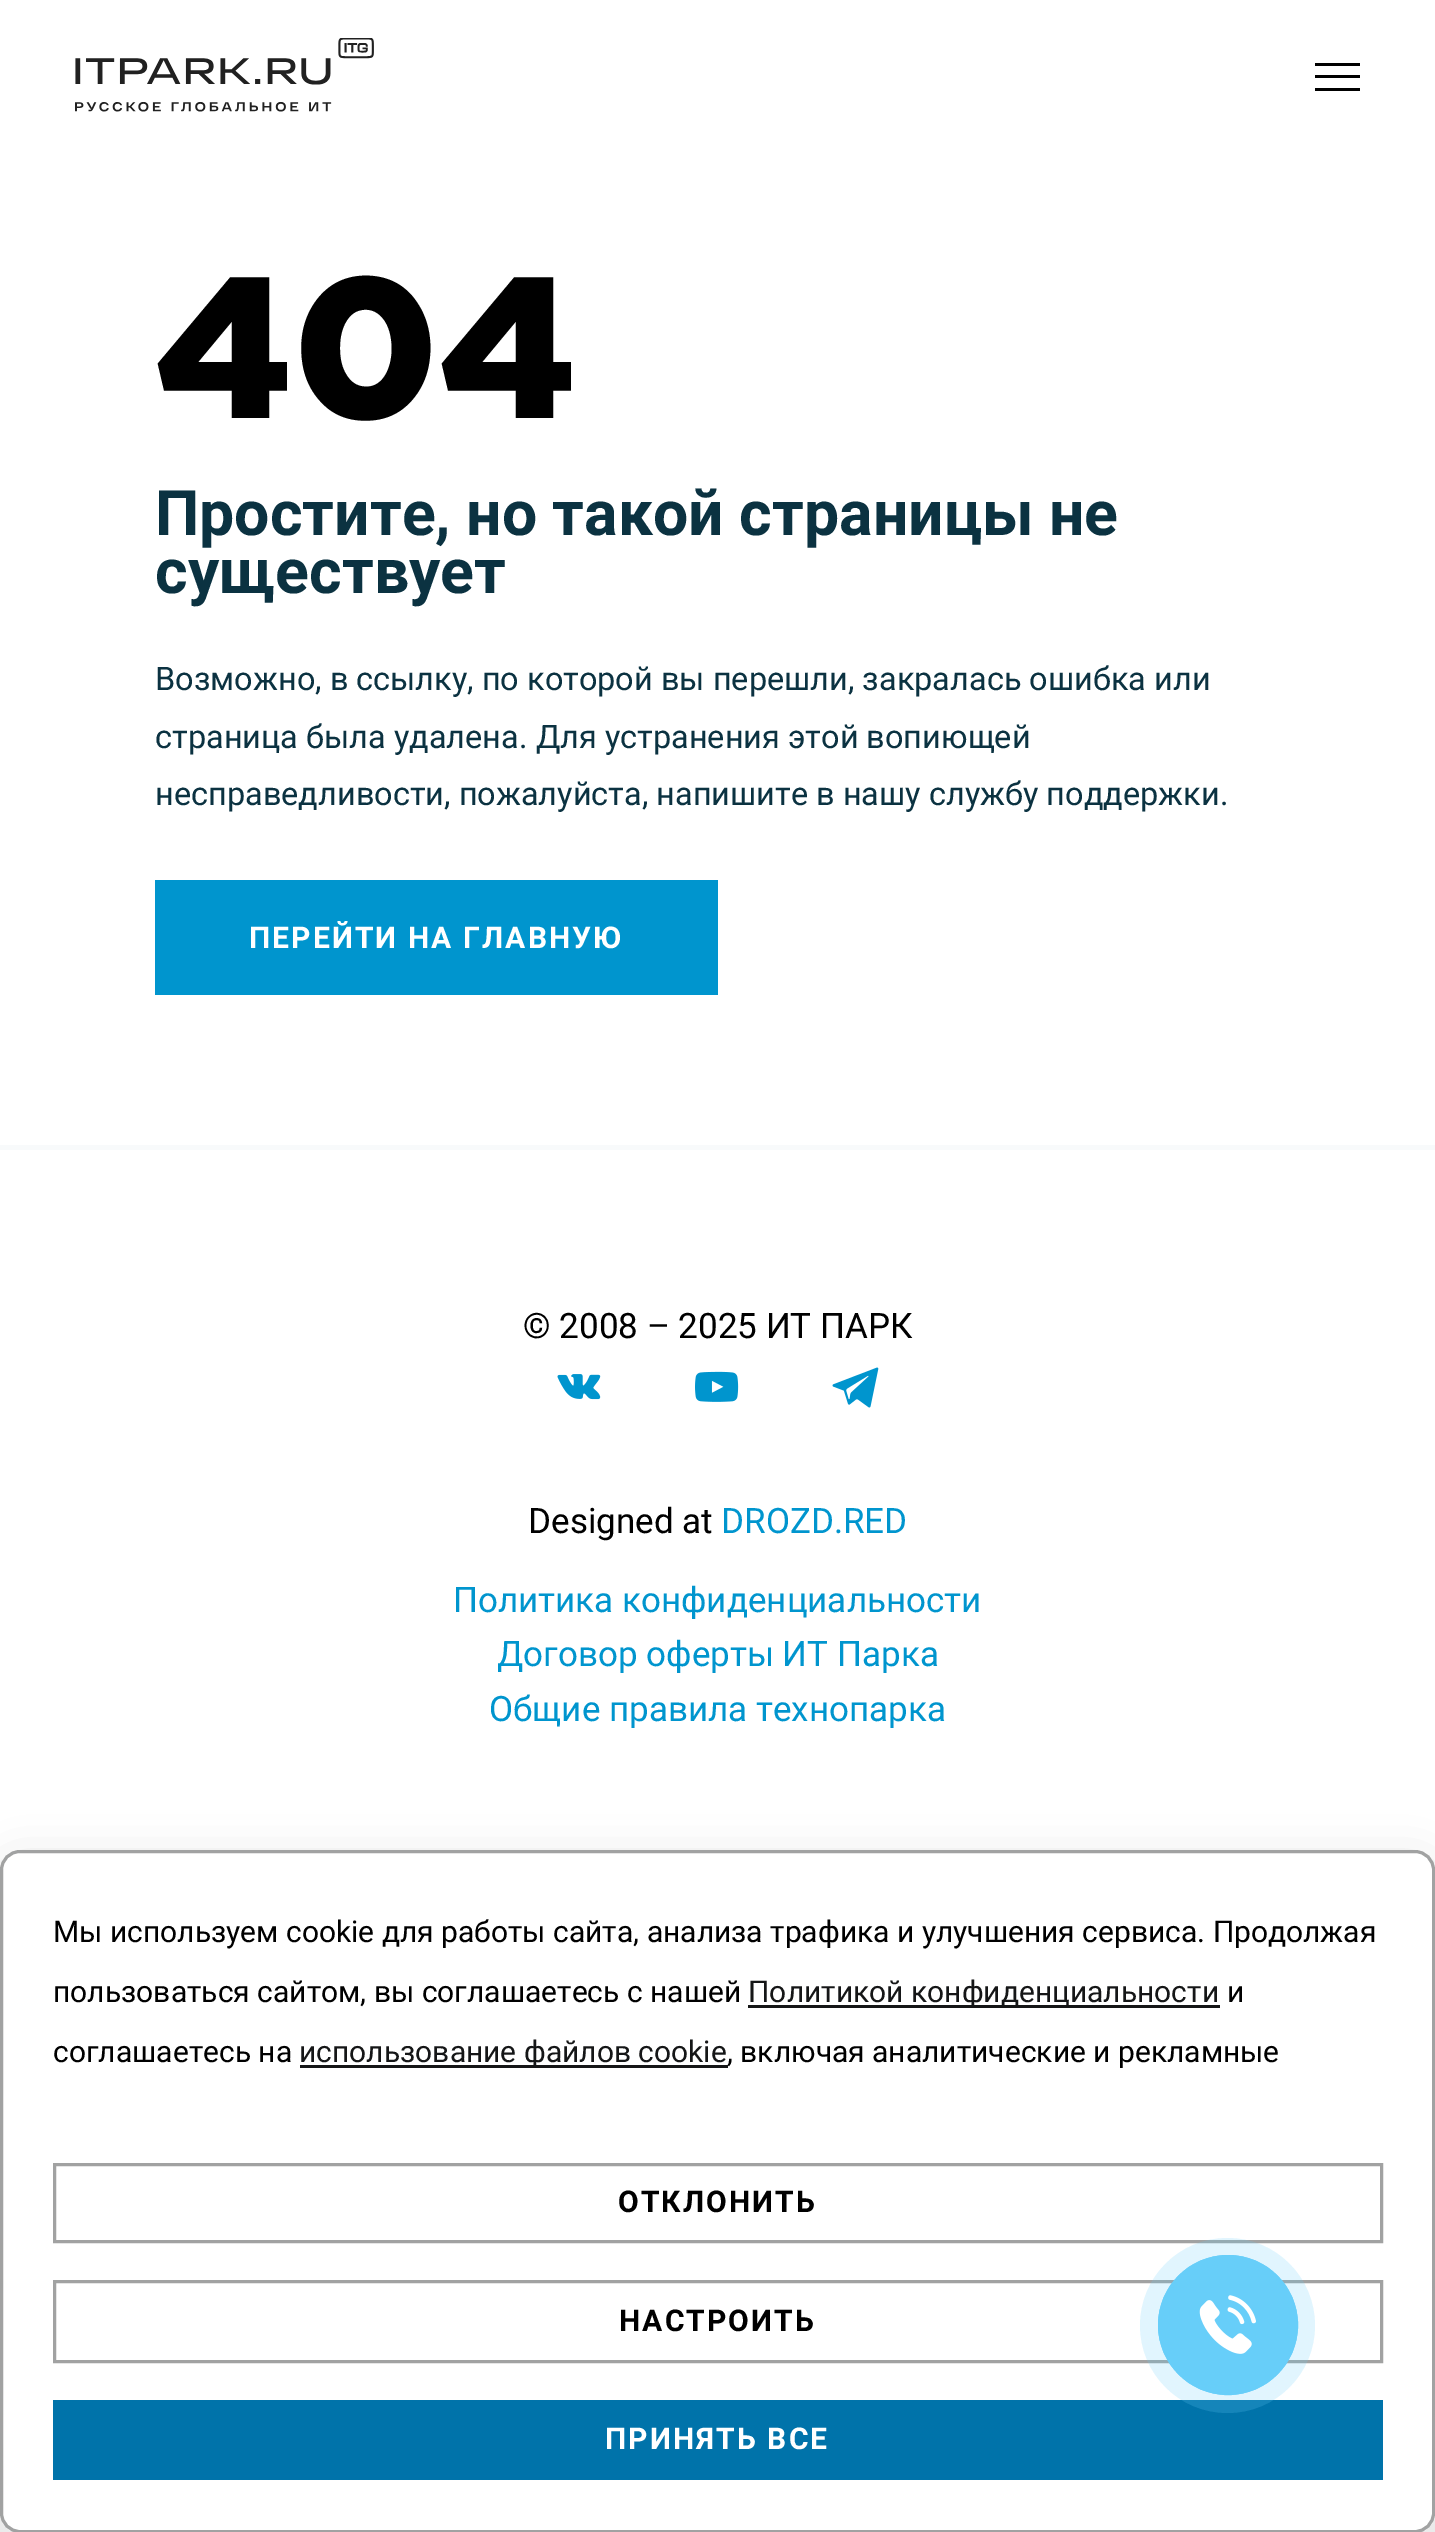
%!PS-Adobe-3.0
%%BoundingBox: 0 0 1435 2532
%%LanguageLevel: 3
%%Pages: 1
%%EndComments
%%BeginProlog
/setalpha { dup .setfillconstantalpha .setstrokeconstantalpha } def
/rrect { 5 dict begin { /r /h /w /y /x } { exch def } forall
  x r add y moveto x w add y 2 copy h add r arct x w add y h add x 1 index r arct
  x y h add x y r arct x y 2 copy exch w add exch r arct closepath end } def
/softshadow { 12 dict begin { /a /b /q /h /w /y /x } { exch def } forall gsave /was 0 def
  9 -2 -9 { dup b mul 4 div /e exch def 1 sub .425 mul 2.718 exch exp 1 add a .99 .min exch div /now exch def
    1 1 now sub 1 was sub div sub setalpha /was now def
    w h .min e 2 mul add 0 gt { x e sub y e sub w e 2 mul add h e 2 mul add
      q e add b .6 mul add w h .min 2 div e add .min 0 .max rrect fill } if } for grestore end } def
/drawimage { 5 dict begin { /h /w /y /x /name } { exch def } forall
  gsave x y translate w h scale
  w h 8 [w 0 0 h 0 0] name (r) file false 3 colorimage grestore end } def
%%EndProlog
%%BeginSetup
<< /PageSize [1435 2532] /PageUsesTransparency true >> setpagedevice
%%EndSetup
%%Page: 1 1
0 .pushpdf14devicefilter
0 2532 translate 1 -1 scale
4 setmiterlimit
1 setgray
0 0 1435 2532 rectfill
(images/1.raw) 75 38 299 74 drawimage
0 setgray
1315 75 45 3 rectfill
1315 63 45 3 rectfill
1315 88 45 3 rectfill
0 0.584 0.808 setrgbcolor
155 880 563 115 rectfill
0.973 0.98 0.984 setrgbcolor
0 1145 1435 5 rectfill
(images/2.raw) 557 1374 44 26 drawimage
(images/3.raw) 695 1371 44 31 drawimage
(images/4.raw) 832 1367 47 41 drawimage
0 setgray
0 1865 1435 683 20 22.5 0.15 softshadow
1 setgray
0 1850 1435 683 20 rrect fill
0.4 setalpha
0.082 0.086 0.09 setrgbcolor
3 setlinewidth
1.5 1851.5 1432 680 18.5 rrect stroke
1 setalpha
748 2005 472 3 rectfill
300 2065 428 3 rectfill
0.631 0.635 0.635 setrgbcolor
54.5 2164.5 1327 77 rectstroke
54.5 2281.5 1327 80 rectstroke
0 0.451 0.667 setrgbcolor
53 2400 1330 80 rectfill
0.2 setalpha
0.404 0.808 0.976 setrgbcolor
newpath 1227.5 2325.5 87.5 0 360 arc closepath fill
1 setalpha
2 setlinewidth
newpath 1228 2325 69 0 360 arc closepath stroke
newpath 1228 2325 70 0 360 arc closepath fill
(images/5.raw) 1199 2295 57 59 drawimage
/Gotham-Black [200 0 0 -200 0 0] selectfont
0 setgray
155 418 moveto (404) show
/Roboto-Bold [62.5 0 0 -62.5 0 0] selectfont
0.043 0.196 0.255 setrgbcolor
155 535 moveto (Простите, но такой страницы не) show
155 593 moveto (существует) show
/Roboto-Regular [32.5 0 0 -32.5 0 0] selectfont
155 690 moveto (Возможно, в ссылку, по которой вы перешли, закралась ошибка или) show
155 748 moveto (страница была удалена. Для устранения этой вопиющей) show
155 805 moveto (несправедливости, пожалуйста, напишите в нашу службу поддержки.) show
/Roboto-Bold [30 0 0 -30 0 0] selectfont
1 setgray
249 948 moveto 2.1 0 (ПЕРЕЙТИ НА ГЛАВНУЮ) ashow
/Roboto-Regular [35 0 0 -35 0 0] selectfont
0 setgray
523 1338 moveto (© 2008 – 2025 ИТ ПАРК) show
528 1533 moveto (Designed at) show
0 0.584 0.808 setrgbcolor
721 1533 moveto (DROZD.RED) show
453 1612 moveto (Политика конфиденциальности) show
497 1666 moveto (Договор оферты ИТ Парка) show
489 1721 moveto (Общие правила технопарка) show
/Roboto-Regular [30 0 0 -30 0 0] selectfont
0 setgray
53 1942 moveto (Мы используем cookie для работы сайта, анализа трафика и улучшения сервиса. Продолжая) show
53 2002 moveto (пользоваться сайтом, вы соглашаетесь с нашей) show
0.082 0.086 0.09 setrgbcolor
748 2002 moveto (Политикой конфиденциальности) show
0 setgray
1227 2002 moveto (и) show
53 2062 moveto (соглашаетесь на) show
0.082 0.086 0.09 setrgbcolor
299 2062 moveto (использование файлов cookie) show
0 setgray
727 2062 moveto (, включая аналитические и рекламные) show
/Roboto-Bold [30 0 0 -30 0 0] selectfont
618 2212 moveto 2.1 0 (ОТКЛОНИТЬ) ashow
619 2331 moveto 2.1 0 (НАСТРОИТЬ) ashow
1 setgray
605 2449 moveto 2.1 0 (ПРИНЯТЬ ВСЕ) ashow
.poppdf14devicefilter showpage
%%EOF
